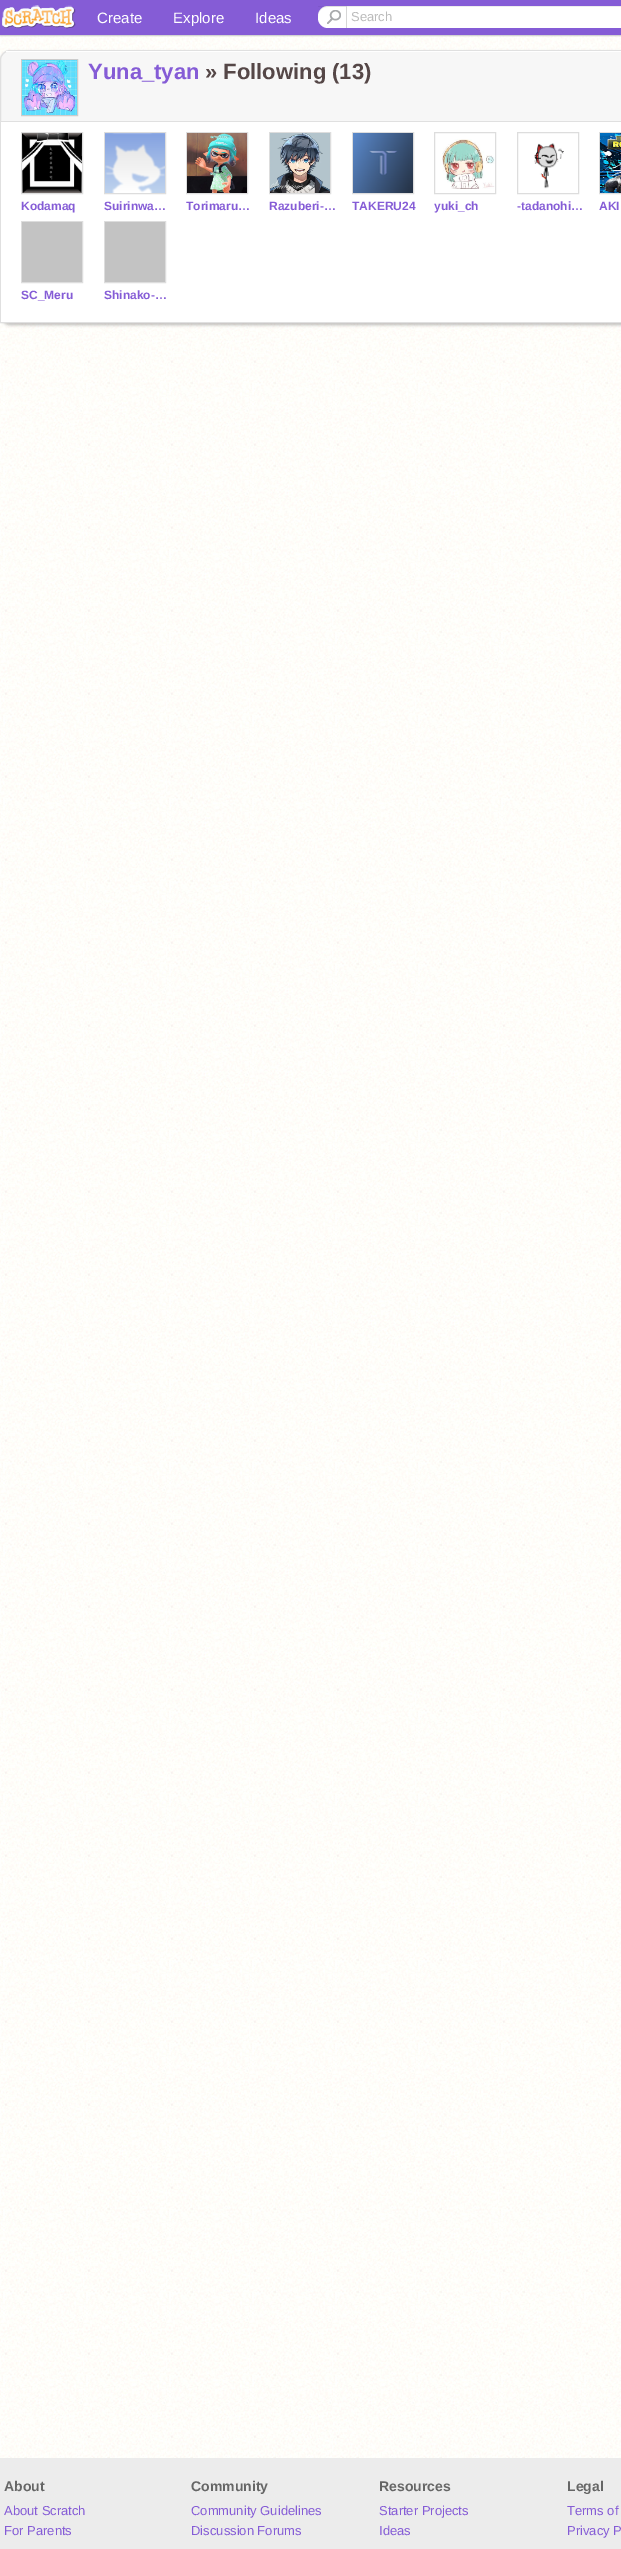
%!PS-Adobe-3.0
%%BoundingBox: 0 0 621 2549
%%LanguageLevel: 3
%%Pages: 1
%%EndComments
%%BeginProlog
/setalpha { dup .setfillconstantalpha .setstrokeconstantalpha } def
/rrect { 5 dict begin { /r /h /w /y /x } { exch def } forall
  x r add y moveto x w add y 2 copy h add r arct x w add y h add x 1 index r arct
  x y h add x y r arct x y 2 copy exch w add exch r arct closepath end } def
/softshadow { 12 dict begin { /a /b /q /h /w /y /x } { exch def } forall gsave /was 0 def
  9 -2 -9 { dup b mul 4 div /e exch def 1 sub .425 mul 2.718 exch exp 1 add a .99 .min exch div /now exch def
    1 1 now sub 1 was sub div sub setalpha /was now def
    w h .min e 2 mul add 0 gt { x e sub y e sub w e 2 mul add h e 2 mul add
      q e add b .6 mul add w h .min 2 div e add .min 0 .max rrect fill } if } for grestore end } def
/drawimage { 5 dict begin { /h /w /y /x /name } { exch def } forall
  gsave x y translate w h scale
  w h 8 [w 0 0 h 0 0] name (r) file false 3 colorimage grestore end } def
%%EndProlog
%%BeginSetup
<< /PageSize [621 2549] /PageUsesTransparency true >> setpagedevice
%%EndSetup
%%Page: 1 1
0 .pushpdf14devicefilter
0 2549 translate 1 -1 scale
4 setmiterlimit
1 setgray
0 0 621 2549 rectfill
(images/1.raw) 0 35 621 2423 drawimage
0.8 setgray
0 1 621 35 0 0.5 1 softshadow
0.522 0.361 0.839 setrgbcolor
0 0 621 35 rectfill
(images/2.raw) 2 5 74 25 drawimage
1 setgray
318 6 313 22 10 rrect fill
0.07 setalpha
0 setgray
newpath 328 7 moveto 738 7 lineto 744 7 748 11 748 17 curveto 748 16 lineto 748 10 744 6 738 6 curveto 328 6 lineto 322 6 318 10 318 16 curveto 318 17 lineto 318 11 322 7 328 7 curveto closepath fill
1 setalpha
(images/3.raw) 327 10 14 14 drawimage
0.06 setalpha
318 6 28 1 rectfill
0.8 setalpha
0.8 setgray
346 6 1 22 rectfill
1 setalpha
0.133 0.098 0.098 setrgbcolor
0 52 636 273 10 1.5 0.3 softshadow
0.969 setgray
newpath 10 50.5 moveto 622 50.5 lineto 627 50.5 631.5 55 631.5 60 curveto 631.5 322.5 lineto 0.5 322.5 lineto 0.5 60 lineto 0.5 55 5 50.5 10 50.5 curveto closepath gsave fill grestore
0.878 setgray
stroke
1 setgray
6 51 615 1 rectfill
0.8 setgray
21.5 59.5 56 56 rectstroke
(images/4.raw) 22 60 55 55 drawimage
1 setgray
1 122 620 200 rectfill
0.878 setgray
1 121 620 1 rectfill
0.867 setgray
21.5 132.5 61 61 rectstroke
(images/5.raw) 22 133 60 60 drawimage
104.5 132.5 61 61 rectstroke
(images/6.raw) 105 133 60 60 drawimage
186.5 132.5 61 61 rectstroke
(images/7.raw) 187 133 60 60 drawimage
269.5 132.5 61 61 rectstroke
(images/8.raw) 270 133 60 60 drawimage
352.5 132.5 61 61 rectstroke
(images/9.raw) 353 133 60 60 drawimage
434.5 132.5 61 61 rectstroke
(images/10.raw) 442 139 53 50 drawimage
517.5 132.5 61 61 rectstroke
(images/11.raw) 534 143 30 46 drawimage
599.5 132.5 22 61 rectstroke
(images/12.raw) 600 133 21 60 drawimage
21.5 221.5 61 61 rectstroke
0.765 setgray
22 222 60 60 rectfill
0.867 setgray
104.5 221.5 61 61 rectstroke
0.765 setgray
105 222 60 60 rectfill
0.925 setgray
0 2458 621 91 rectfill
/LiberationSans-Regular [15 0 0 -15 0 0] selectfont
1 setgray
97 23 moveto (Create) show
173 23 moveto (Explore) show
255 23 moveto (Ideas) show
/LiberationSans-Regular [13 0 0 -13 0 0] selectfont
0.733 setgray
351 21 moveto (Search) show
/LiberationSans-Bold [22 0 0 -22 0 0] selectfont
0.522 0.361 0.839 setrgbcolor
88 79 moveto (Yuna_tyan) show
0.333 0.278 0.278 setrgbcolor
205 79 moveto (» Following \(13\)) show
/LiberationSans-Bold [12 0 0 -12 0 0] selectfont
0.522 0.361 0.839 setrgbcolor
21 210 moveto (Kodamaq) show
104 210 moveto (Suirinwa…) show
186 210 moveto (Torimaru…) show
269 210 moveto (Razuberi-…) show
352 210 moveto (TAKERU24) show
434 210 moveto (yuki_ch) show
517 210 moveto (-tadanohi…) show
599 210 moveto (AKI) show
21 299 moveto (SC_Meru) show
104 299 moveto (Shinako-…) show
/LiberationSans-Bold [14 0 0 -14 0 0] selectfont
0.4 setgray
4 2491 moveto (About) show
/LiberationSans-Regular [13 0 0 -13 0 0] selectfont
0.522 0.361 0.839 setrgbcolor
4 2515 moveto (About Scratch) show
4 2535 moveto (For Parents) show
/LiberationSans-Bold [14 0 0 -14 0 0] selectfont
0.4 setgray
191 2491 moveto (Community) show
/LiberationSans-Regular [13 0 0 -13 0 0] selectfont
0.522 0.361 0.839 setrgbcolor
191 2515 moveto (Community Guidelines) show
191 2535 moveto (Discussion Forums) show
/LiberationSans-Bold [14 0 0 -14 0 0] selectfont
0.4 setgray
379 2491 moveto (Resources) show
/LiberationSans-Regular [13 0 0 -13 0 0] selectfont
0.522 0.361 0.839 setrgbcolor
379 2515 moveto (Starter Projects) show
379 2535 moveto (Ideas) show
/LiberationSans-Bold [14 0 0 -14 0 0] selectfont
0.4 setgray
567 2491 moveto (Legal) show
/LiberationSans-Regular [13 0 0 -13 0 0] selectfont
0.522 0.361 0.839 setrgbcolor
567 2515 moveto (Terms of) show
567 2535 moveto (Privacy P) show
.poppdf14devicefilter showpage
%%EOF
